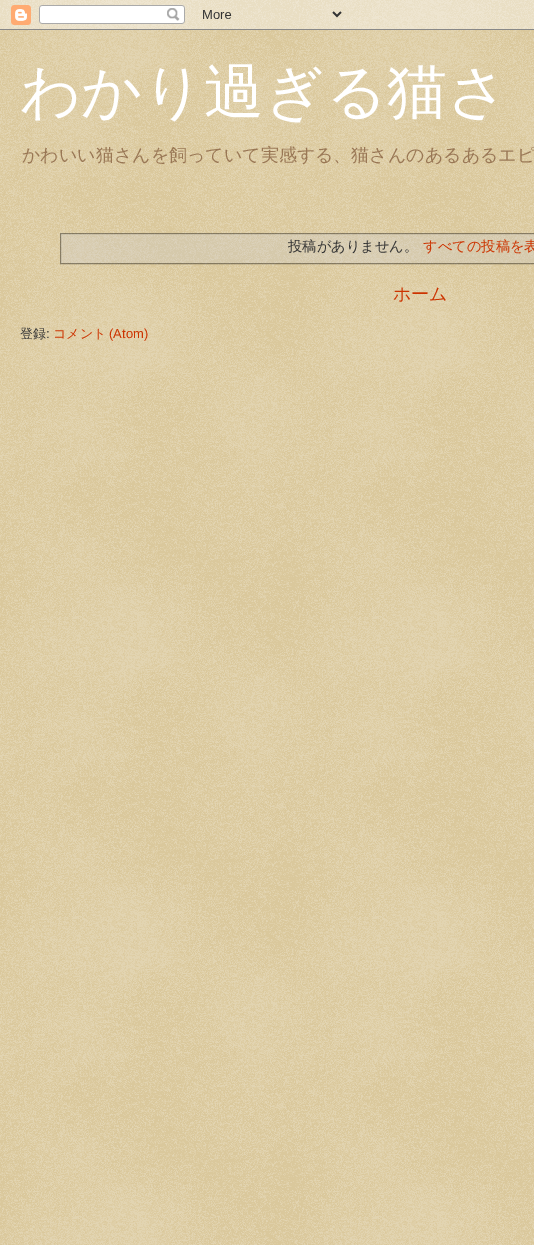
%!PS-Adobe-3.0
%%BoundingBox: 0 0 534 1245
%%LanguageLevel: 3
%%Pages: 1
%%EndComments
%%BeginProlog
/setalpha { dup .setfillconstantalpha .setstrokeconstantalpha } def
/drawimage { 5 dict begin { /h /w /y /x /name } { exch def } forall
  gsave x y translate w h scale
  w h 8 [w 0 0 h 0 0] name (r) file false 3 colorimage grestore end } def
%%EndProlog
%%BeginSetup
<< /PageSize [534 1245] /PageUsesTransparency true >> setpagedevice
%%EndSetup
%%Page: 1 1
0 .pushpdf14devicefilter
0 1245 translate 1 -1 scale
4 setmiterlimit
0.753 0.631 0.329 setrgbcolor
0 0 534 1245 rectfill
(images/1.raw) 0 0 534 1245 drawimage
(images/2.raw) 0 0 534 30 drawimage
0.4 setalpha
0 setgray
60.5 233.5 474 30 rectstroke
0.32 setalpha
0.8 setgray
61 234 473 29 rectfill
/WenQuanYiZenHei-Medium [60 0 0 -60 0 0] selectfont
1 setalpha
1 setgray
20 112 moveto (わかり過ぎる猫さ) show
/WenQuanYiZenHei-Medium [18 0 0 -18 0 0] selectfont
0.6 0.467 0.333 setrgbcolor
22 161 moveto (かわいい猫さんを飼っていて実感する、猫さんのあるあるエピ) show
/WenQuanYiZenHei-Medium [14.25 0 0 -14.25 0 0] selectfont
0.2 setgray
288 251 moveto (投稿がありません。) show
0.8 0.2 0 setrgbcolor
423 251 moveto (すべての投稿を表) show
/WenQuanYiZenHei-Medium [18 0 0 -18 0 0] selectfont
393 300 moveto (ホーム) show
/WenQuanYiZenHei-Medium [13 0 0 -13 0 0] selectfont
0.2 setgray
20 338 moveto (登録) show
/LiberationSans-Regular [13 0 0 -13 0 0] selectfont
46 338 moveto (:) show
/WenQuanYiZenHei-Medium [13 0 0 -13 0 0] selectfont
0.8 0.2 0 setrgbcolor
53 338 moveto (コメント) show
/LiberationSans-Regular [13 0 0 -13 0 0] selectfont
109 338 moveto (\(Atom\)) show
.poppdf14devicefilter showpage
%%EOF
